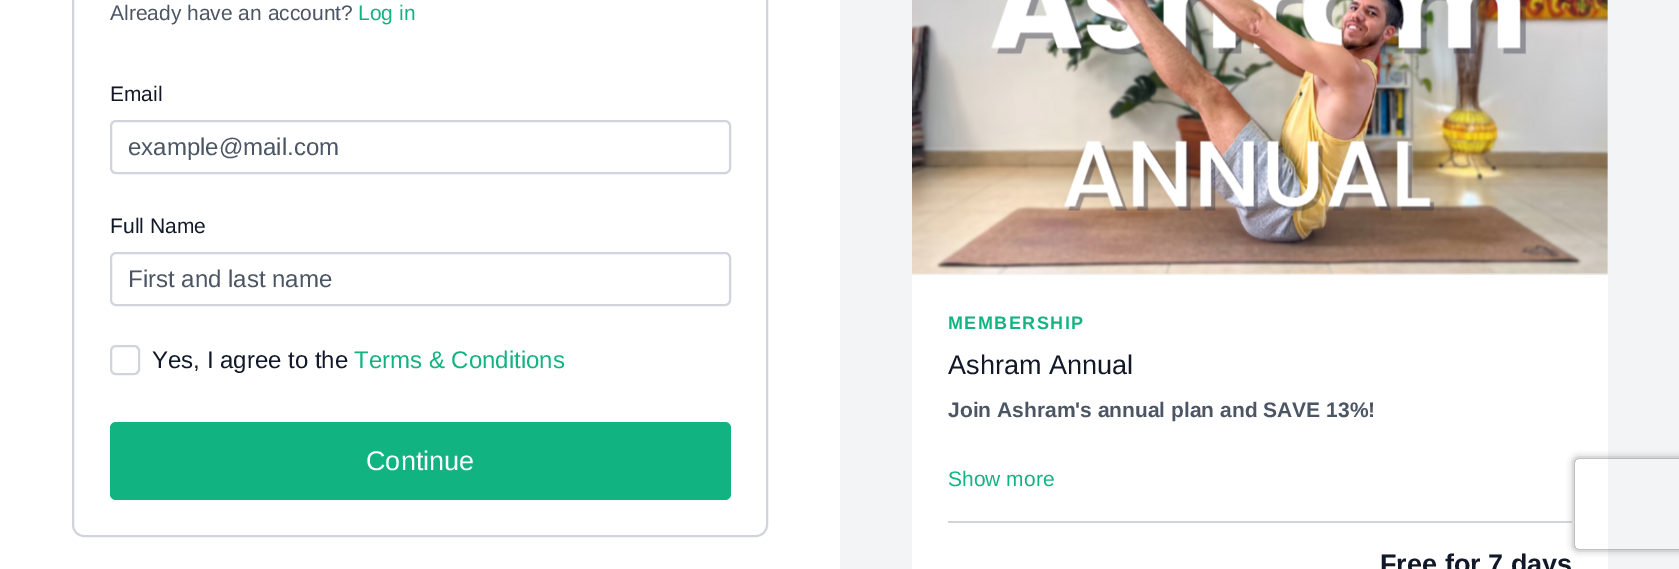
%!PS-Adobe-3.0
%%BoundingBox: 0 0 1679 569
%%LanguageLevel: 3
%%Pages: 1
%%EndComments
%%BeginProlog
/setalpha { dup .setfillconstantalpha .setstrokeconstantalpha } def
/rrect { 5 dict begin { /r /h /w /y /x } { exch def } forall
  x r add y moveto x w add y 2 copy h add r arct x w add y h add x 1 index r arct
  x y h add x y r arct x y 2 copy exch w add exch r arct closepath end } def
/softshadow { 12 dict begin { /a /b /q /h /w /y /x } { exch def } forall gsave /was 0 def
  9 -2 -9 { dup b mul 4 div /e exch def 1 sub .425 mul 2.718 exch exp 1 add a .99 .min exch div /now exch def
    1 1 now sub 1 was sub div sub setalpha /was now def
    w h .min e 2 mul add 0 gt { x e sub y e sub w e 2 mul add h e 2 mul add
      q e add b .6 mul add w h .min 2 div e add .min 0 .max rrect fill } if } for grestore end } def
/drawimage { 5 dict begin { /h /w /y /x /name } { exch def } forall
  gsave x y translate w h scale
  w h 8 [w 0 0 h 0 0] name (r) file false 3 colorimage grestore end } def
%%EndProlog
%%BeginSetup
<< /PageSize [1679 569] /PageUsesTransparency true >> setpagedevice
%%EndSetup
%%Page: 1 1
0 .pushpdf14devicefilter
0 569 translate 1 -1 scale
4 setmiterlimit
1 setgray
0 0 1679 569 rectfill
0.82 0.835 0.859 setrgbcolor
2 setlinewidth
73 -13 694 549 11 rrect stroke
111 121 619 52 5 rrect stroke
111 253 619 52 5 rrect stroke
111 346 28 28 5 rrect stroke
0.067 0.702 0.502 setrgbcolor
110 422 621 78 6 rrect fill
0.953 0.957 0.965 setrgbcolor
840 0 839 569 rectfill
(images/1.raw) 912 0 696 275 drawimage
1 setgray
912 275 696 294 rectfill
0.82 0.835 0.859 setrgbcolor
948 521 624 2 rectfill
gsave
newpath 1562 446 moveto 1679 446 lineto 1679 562 lineto 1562 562 lineto closepath 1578 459 moveto 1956 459 lineto 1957.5 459 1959 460.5 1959 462 curveto 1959 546 lineto 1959 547.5 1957.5 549 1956 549 curveto 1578 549 lineto 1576.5 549 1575 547.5 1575 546 curveto 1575 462 lineto 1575 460.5 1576.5 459 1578 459 curveto closepath eoclip newpath
0.502 setgray
1575 459 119 90 3 4 1 softshadow
grestore
/LiberationSans-Regular [21 0 0 -21 0 0] selectfont
0.294 0.333 0.388 setrgbcolor
110 20 moveto (Already have an account?) show
0.067 0.702 0.502 setrgbcolor
358 20 moveto (Log in) show
0.067 0.094 0.153 setrgbcolor
110 101 moveto (Email) show
/LiberationSans-Regular [24 0 0 -24 0 0] selectfont
0.294 0.333 0.388 setrgbcolor
128 155 moveto (example@mail.com) show
/LiberationSans-Regular [21 0 0 -21 0 0] selectfont
0.067 0.094 0.153 setrgbcolor
110 233 moveto (Full Name) show
/LiberationSans-Regular [24 0 0 -24 0 0] selectfont
0.294 0.333 0.388 setrgbcolor
128 287 moveto (First and last name) show
0.067 0.094 0.153 setrgbcolor
152 368 moveto (Yes, I agree to the) show
0.067 0.702 0.502 setrgbcolor
354 368 moveto (Terms & Conditions) show
/LiberationSans-Regular [27 0 0 -27 0 0] selectfont
1 setgray
366 470 moveto (Continue) show
/LiberationSans-Bold [18 0 0 -18 0 0] selectfont
0.067 0.702 0.502 setrgbcolor
948 329 moveto 1.5 0 (MEMBERSHIP) ashow
/LiberationSans-Regular [27 0 0 -27 0 0] selectfont
0.067 0.094 0.153 setrgbcolor
948 374 moveto (Ashram Annual) show
/LiberationSans-Bold [21 0 0 -21 0 0] selectfont
0.294 0.333 0.388 setrgbcolor
948 417 moveto (Join Ashram's annual plan and SAVE 13%!) show
/LiberationSans-Regular [21 0 0 -21 0 0] selectfont
0.067 0.702 0.502 setrgbcolor
948 486 moveto (Show more) show
/LiberationSans-Bold [27 0 0 -27 0 0] selectfont
0.067 0.094 0.153 setrgbcolor
1380 573 moveto (Free for 7 days) show
.poppdf14devicefilter showpage
%%EOF
